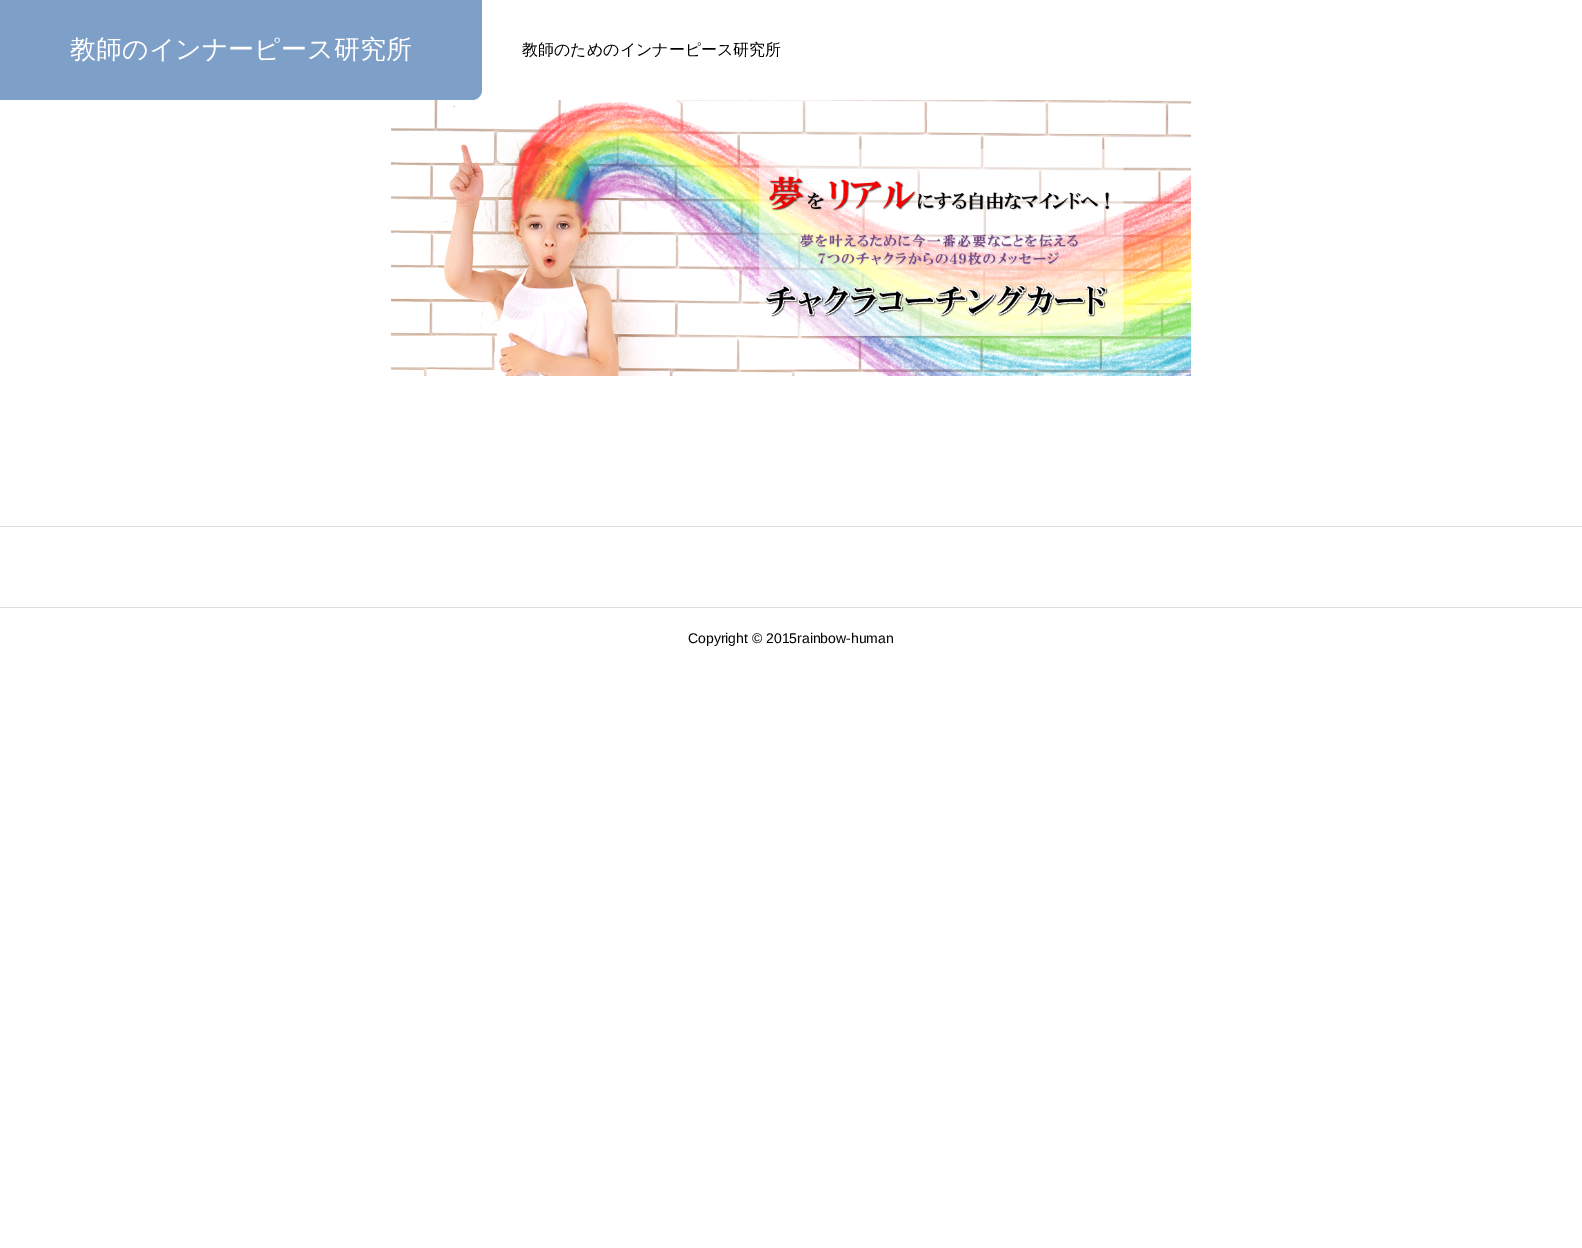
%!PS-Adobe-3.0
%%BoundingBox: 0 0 1582 1248
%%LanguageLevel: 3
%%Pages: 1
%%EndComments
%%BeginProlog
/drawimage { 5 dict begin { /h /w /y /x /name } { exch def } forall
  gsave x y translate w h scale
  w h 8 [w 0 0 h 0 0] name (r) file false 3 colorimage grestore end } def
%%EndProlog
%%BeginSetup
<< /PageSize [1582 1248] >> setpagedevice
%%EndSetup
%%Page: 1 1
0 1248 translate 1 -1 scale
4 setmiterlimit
1 setgray
0 0 1582 1248 rectfill
0.494 0.627 0.784 setrgbcolor
newpath 0 0 moveto 482 0 lineto 482 90 lineto 482 95.5 477.5 100 472 100 curveto 0 100 lineto closepath fill
(images/1.raw) 391 100 800 276 drawimage
0.867 setgray
0 526 1582 1 rectfill
0 607 1582 1 rectfill
/WenQuanYiZenHei-Medium [26 0 0 -26 0 0] selectfont
1 setgray
70 58 moveto (教師のインナーピース研究所) show
/WenQuanYiZenHei-Medium [16 0 0 -16 0 0] selectfont
0 setgray
522 55 moveto (教師のためのインナーピース研究所) show
/LiberationSans-Regular [14 0 0 -14 0 0] selectfont
688 643 moveto (Copyright © 2015rainbow-human) show
showpage
%%EOF
